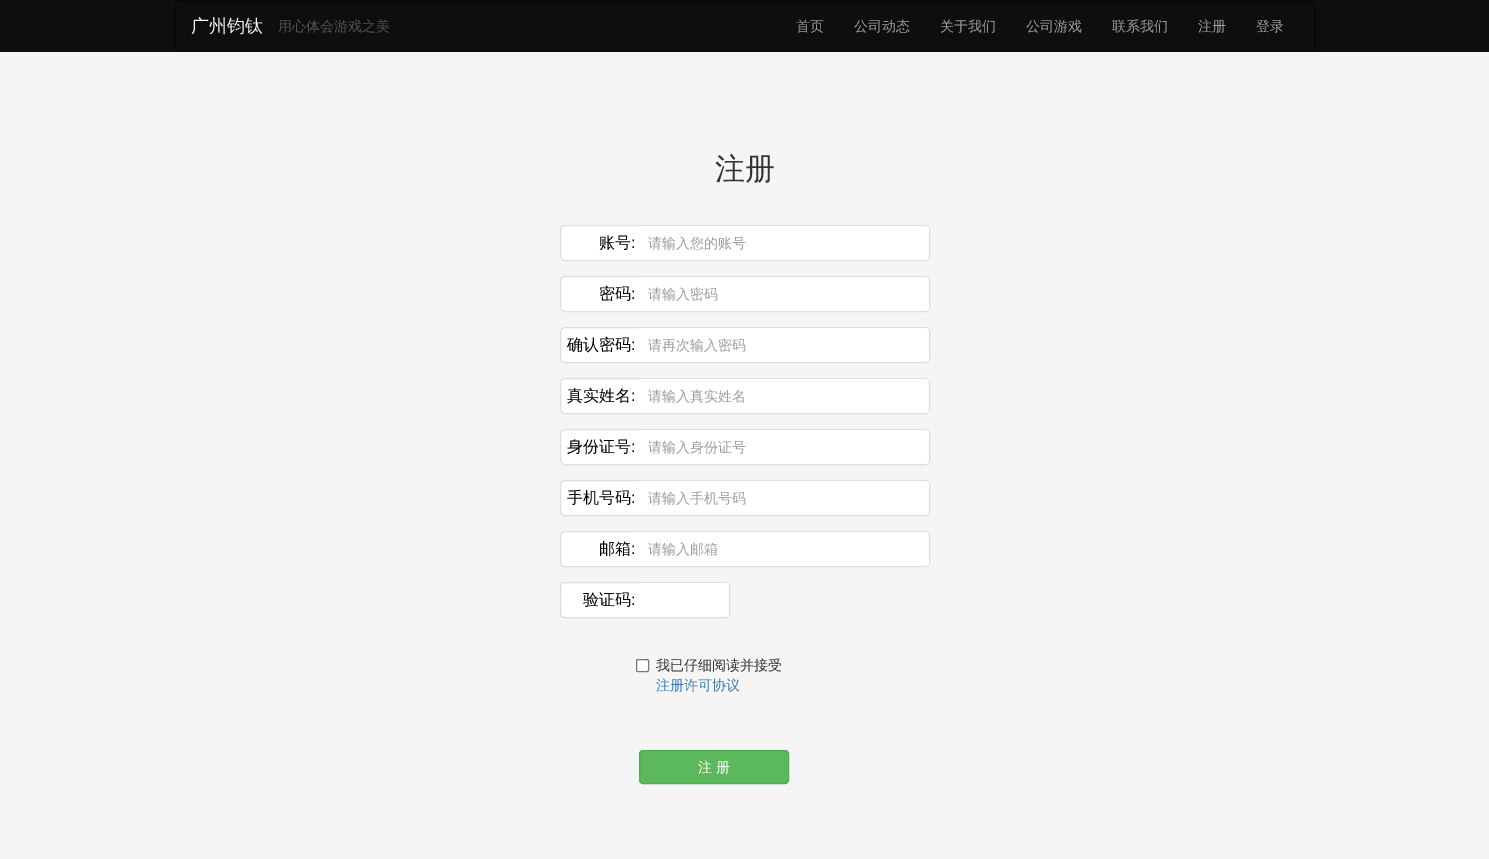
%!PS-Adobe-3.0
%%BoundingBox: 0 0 1489 859
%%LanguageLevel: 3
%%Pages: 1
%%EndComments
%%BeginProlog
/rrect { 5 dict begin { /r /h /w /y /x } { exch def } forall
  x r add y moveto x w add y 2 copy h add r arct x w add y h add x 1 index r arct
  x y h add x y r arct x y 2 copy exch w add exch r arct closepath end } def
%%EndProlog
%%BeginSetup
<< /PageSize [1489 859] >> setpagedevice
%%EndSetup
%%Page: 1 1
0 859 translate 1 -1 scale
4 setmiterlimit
0.055 setgray
0 0 1489 859 rectfill
0.031 setgray
175.5 0.5 1139 51 3.5 rrect stroke
0.961 setgray
0 52 1489 807 rectfill
1 setgray
560.5 225.5 369 35 4.5 rrect gsave fill grestore
0.871 setgray
stroke
1 setgray
636 226 293 34 4 rrect fill
560.5 276.5 369 35 4.5 rrect gsave fill grestore
0.871 setgray
stroke
1 setgray
636 277 293 34 4 rrect fill
560.5 327.5 369 35 4.5 rrect gsave fill grestore
0.871 setgray
stroke
1 setgray
636 328 293 34 4 rrect fill
560.5 378.5 369 35 4.5 rrect gsave fill grestore
0.871 setgray
stroke
1 setgray
636 379 293 34 4 rrect fill
560.5 429.5 369 35 4.5 rrect gsave fill grestore
0.871 setgray
stroke
1 setgray
636 430 293 34 4 rrect fill
560.5 480.5 369 35 4.5 rrect gsave fill grestore
0.871 setgray
stroke
1 setgray
636 481 293 34 4 rrect fill
560.5 531.5 369 35 4.5 rrect gsave fill grestore
0.871 setgray
stroke
1 setgray
636 532 293 34 4 rrect fill
560.5 582.5 169 35 4.5 rrect gsave fill grestore
0.871 setgray
stroke
1 setgray
636 583 93 34 4 rrect fill
636.5 659.5 12 12 1.5 rrect gsave fill grestore
0.463 setgray
stroke
0.361 0.722 0.361 setrgbcolor
639.5 750.5 149 33 3.5 rrect gsave fill grestore
0.298 0.682 0.298 setrgbcolor
stroke
/WenQuanYiZenHei-Medium [18 0 0 -18 0 0] selectfont
0.961 setgray
191 32 moveto (广州钧钛) show
/WenQuanYiZenHei-Medium [14 0 0 -14 0 0] selectfont
0.325 setgray
278 31 moveto (用心体会游戏之美) show
0.616 setgray
796 31 moveto (首页) show
854 31 moveto (公司动态) show
940 31 moveto (关于我们) show
1026 31 moveto (公司游戏) show
1112 31 moveto (联系我们) show
1198 31 moveto (注册) show
1256 31 moveto (登录) show
/WenQuanYiZenHei-Medium [30 0 0 -30 0 0] selectfont
0.2 setgray
715 179 moveto (注册) show
/WenQuanYiZenHei-Medium [16 0 0 -16 0 0] selectfont
0 setgray
599 248 moveto (账号) show
/LiberationSans-Regular [16 0 0 -16 0 0] selectfont
631 248 moveto (:) show
/WenQuanYiZenHei-Medium [14 0 0 -14 0 0] selectfont
0.616 setgray
648 248 moveto (请输入您的账号) show
/WenQuanYiZenHei-Medium [16 0 0 -16 0 0] selectfont
0 setgray
599 299 moveto (密码) show
/LiberationSans-Regular [16 0 0 -16 0 0] selectfont
631 299 moveto (:) show
/WenQuanYiZenHei-Medium [14 0 0 -14 0 0] selectfont
0.616 setgray
648 299 moveto (请输入密码) show
/WenQuanYiZenHei-Medium [16 0 0 -16 0 0] selectfont
0 setgray
567 350 moveto (确认密码) show
/LiberationSans-Regular [16 0 0 -16 0 0] selectfont
631 350 moveto (:) show
/WenQuanYiZenHei-Medium [14 0 0 -14 0 0] selectfont
0.616 setgray
648 350 moveto (请再次输入密码) show
/WenQuanYiZenHei-Medium [16 0 0 -16 0 0] selectfont
0 setgray
567 401 moveto (真实姓名) show
/LiberationSans-Regular [16 0 0 -16 0 0] selectfont
631 401 moveto (:) show
/WenQuanYiZenHei-Medium [14 0 0 -14 0 0] selectfont
0.616 setgray
648 401 moveto (请输入真实姓名) show
/WenQuanYiZenHei-Medium [16 0 0 -16 0 0] selectfont
0 setgray
567 452 moveto (身份证号) show
/LiberationSans-Regular [16 0 0 -16 0 0] selectfont
631 452 moveto (:) show
/WenQuanYiZenHei-Medium [14 0 0 -14 0 0] selectfont
0.616 setgray
648 452 moveto (请输入身份证号) show
/WenQuanYiZenHei-Medium [16 0 0 -16 0 0] selectfont
0 setgray
567 503 moveto (手机号码) show
/LiberationSans-Regular [16 0 0 -16 0 0] selectfont
631 503 moveto (:) show
/WenQuanYiZenHei-Medium [14 0 0 -14 0 0] selectfont
0.616 setgray
648 503 moveto (请输入手机号码) show
/WenQuanYiZenHei-Medium [16 0 0 -16 0 0] selectfont
0 setgray
599 554 moveto (邮箱) show
/LiberationSans-Regular [16 0 0 -16 0 0] selectfont
631 554 moveto (:) show
/WenQuanYiZenHei-Medium [14 0 0 -14 0 0] selectfont
0.616 setgray
648 554 moveto (请输入邮箱) show
/WenQuanYiZenHei-Medium [16 0 0 -16 0 0] selectfont
0 setgray
583 605 moveto (验证码) show
/LiberationSans-Regular [16 0 0 -16 0 0] selectfont
631 605 moveto (:) show
/WenQuanYiZenHei-Medium [14 0 0 -14 0 0] selectfont
0.2 setgray
656 670 moveto (我已仔细阅读并接受) show
0.2 0.478 0.718 setrgbcolor
656 690 moveto (注册许可协议) show
1 setgray
698 772 moveto (注 册) show
showpage
%%EOF
